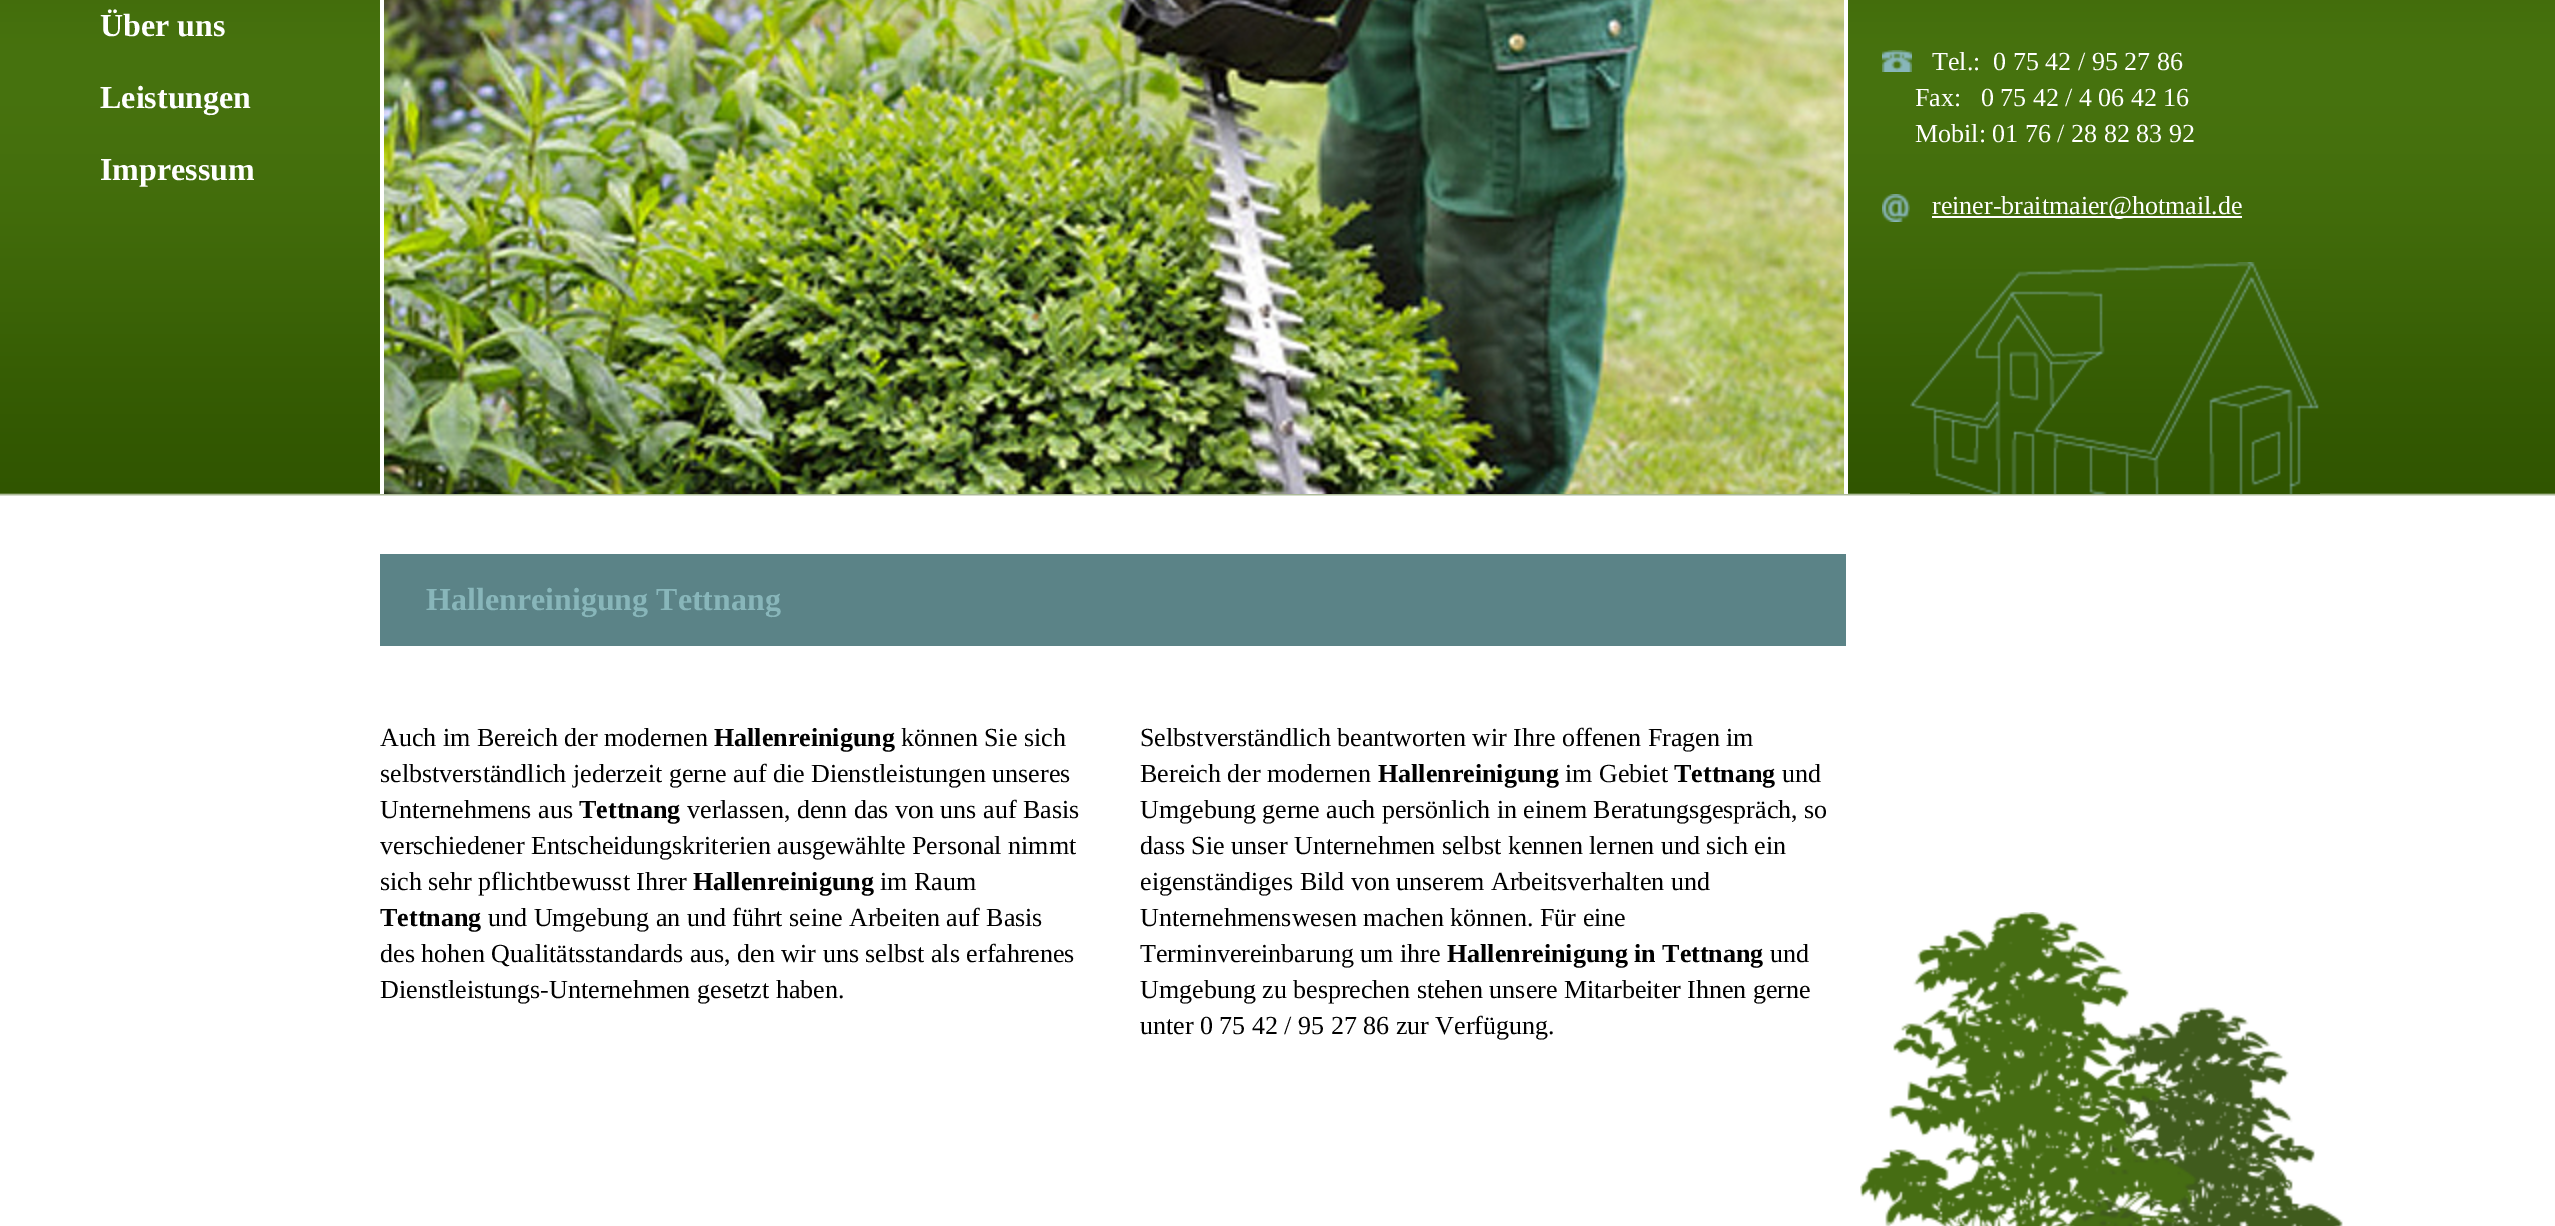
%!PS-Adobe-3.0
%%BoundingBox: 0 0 2555 1226
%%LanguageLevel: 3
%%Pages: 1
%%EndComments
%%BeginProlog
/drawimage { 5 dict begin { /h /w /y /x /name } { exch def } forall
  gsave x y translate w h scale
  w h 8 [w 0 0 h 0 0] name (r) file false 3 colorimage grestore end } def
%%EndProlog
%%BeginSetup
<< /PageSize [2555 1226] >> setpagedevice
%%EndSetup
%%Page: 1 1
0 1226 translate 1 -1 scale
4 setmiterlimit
1 setgray
0 0 2555 1226 rectfill
(images/1.raw) 0 0 2555 496 drawimage
1844 0 4 494 rectfill
380 0 4 494 rectfill
(images/2.raw) 384 0 1460 494 drawimage
(images/3.raw) 1882 50 30 22 drawimage
(images/4.raw) 1882 194 28 28 drawimage
1932 216 310 2 rectfill
(images/5.raw) 1910 262 410 232 drawimage
0.357 0.514 0.529 setrgbcolor
380 554 1466 92 rectfill
(images/6.raw) 1860 912 483 314 drawimage
/LiberationSerif-Bold [32 0 0 -32 0 0] selectfont
1 setgray
100 36 moveto (Über uns) show
100 108 moveto (Leistungen) show
100 180 moveto (Impressum) show
/LiberationSerif-Regular [26 0 0 -26 0 0] selectfont
1932 70 moveto (Tel.:  0 75 42 / 95 27 86) show
1915 106 moveto (Fax:   0 75 42 / 4 06 42 16) show
1915 142 moveto (Mobil: 01 76 / 28 82 83 92) show
1932 214 moveto (reiner-braitmaier@hotmail.de) show
/LiberationSerif-Bold [32 0 0 -32 0 0] selectfont
0.533 0.714 0.729 setrgbcolor
426 610 moveto (Hallenreinigung Tettnang) show
/LiberationSerif-Regular [26 0 0 -26 0 0] selectfont
0 setgray
380 746 moveto (Auch im Bereich der modernen) show
/LiberationSerif-Bold [26 0 0 -26 0 0] selectfont
714 746 moveto (Hallenreinigung) show
/LiberationSerif-Regular [26 0 0 -26 0 0] selectfont
901 746 moveto (können Sie sich) show
380 782 moveto (selbstverständlich jederzeit gerne auf die Dienstleistungen unseres) show
380 818 moveto (Unternehmens aus) show
/LiberationSerif-Bold [26 0 0 -26 0 0] selectfont
579 818 moveto (Tettnang) show
/LiberationSerif-Regular [26 0 0 -26 0 0] selectfont
687 818 moveto (verlassen, denn das von uns auf Basis) show
380 854 moveto (verschiedener Entscheidungskriterien ausgewählte Personal nimmt) show
380 890 moveto (sich sehr pflichtbewusst Ihrer) show
/LiberationSerif-Bold [26 0 0 -26 0 0] selectfont
693 890 moveto (Hallenreinigung) show
/LiberationSerif-Regular [26 0 0 -26 0 0] selectfont
880 890 moveto (im Raum) show
/LiberationSerif-Bold [26 0 0 -26 0 0] selectfont
380 926 moveto (Tettnang) show
/LiberationSerif-Regular [26 0 0 -26 0 0] selectfont
488 926 moveto (und Umgebung an und führt seine Arbeiten auf Basis) show
380 962 moveto (des hohen Qualitätsstandards aus, den wir uns selbst als erfahrenes) show
380 998 moveto (Dienstleistungs-Unternehmen gesetzt haben.) show
1140 746 moveto (Selbstverständlich beantworten wir Ihre offenen Fragen im) show
1140 782 moveto (Bereich der modernen) show
/LiberationSerif-Bold [26 0 0 -26 0 0] selectfont
1378 782 moveto (Hallenreinigung) show
/LiberationSerif-Regular [26 0 0 -26 0 0] selectfont
1565 782 moveto (im Gebiet) show
/LiberationSerif-Bold [26 0 0 -26 0 0] selectfont
1674 782 moveto (Tettnang) show
/LiberationSerif-Regular [26 0 0 -26 0 0] selectfont
1782 782 moveto (und) show
1140 818 moveto (Umgebung gerne auch persönlich in einem Beratungsgespräch, so) show
1140 854 moveto (dass Sie unser Unternehmen selbst kennen lernen und sich ein) show
1140 890 moveto (eigenständiges Bild von unserem Arbeitsverhalten und) show
1140 926 moveto (Unternehmenswesen machen können. Für eine) show
1140 962 moveto (Terminvereinbarung um ihre) show
/LiberationSerif-Bold [26 0 0 -26 0 0] selectfont
1447 962 moveto (Hallenreinigung in Tettnang) show
/LiberationSerif-Regular [26 0 0 -26 0 0] selectfont
1770 962 moveto (und) show
1140 998 moveto (Umgebung zu besprechen stehen unsere Mitarbeiter Ihnen gerne) show
1140 1034 moveto (unter 0 75 42 / 95 27 86 zur Verfügung.) show
showpage
%%EOF
